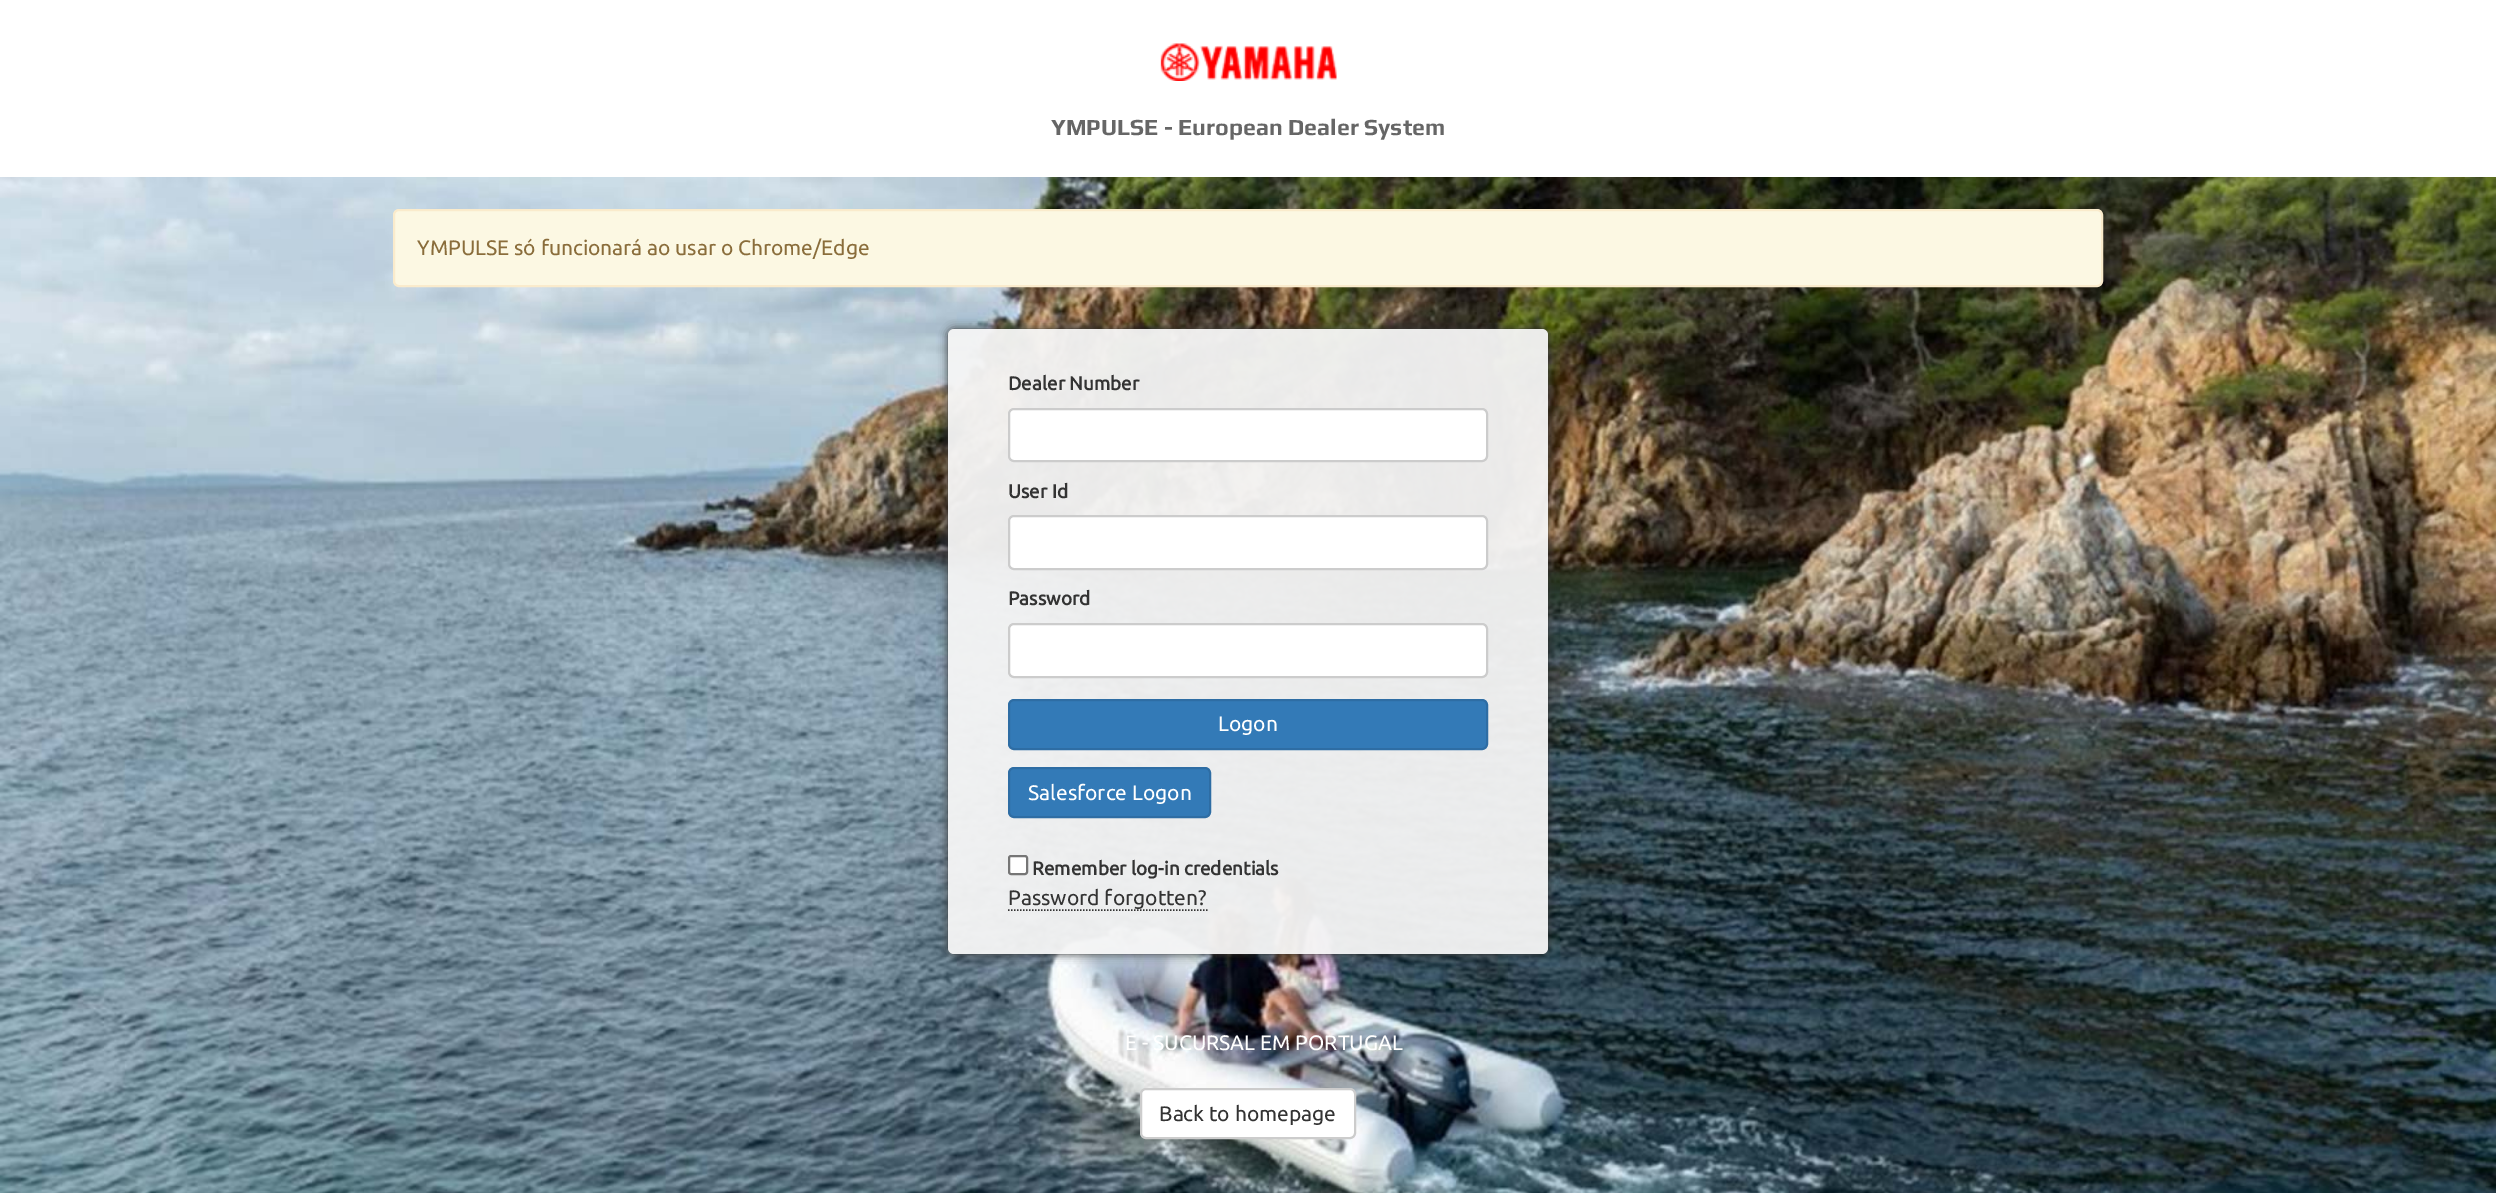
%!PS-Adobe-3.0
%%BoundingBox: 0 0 2496 1193
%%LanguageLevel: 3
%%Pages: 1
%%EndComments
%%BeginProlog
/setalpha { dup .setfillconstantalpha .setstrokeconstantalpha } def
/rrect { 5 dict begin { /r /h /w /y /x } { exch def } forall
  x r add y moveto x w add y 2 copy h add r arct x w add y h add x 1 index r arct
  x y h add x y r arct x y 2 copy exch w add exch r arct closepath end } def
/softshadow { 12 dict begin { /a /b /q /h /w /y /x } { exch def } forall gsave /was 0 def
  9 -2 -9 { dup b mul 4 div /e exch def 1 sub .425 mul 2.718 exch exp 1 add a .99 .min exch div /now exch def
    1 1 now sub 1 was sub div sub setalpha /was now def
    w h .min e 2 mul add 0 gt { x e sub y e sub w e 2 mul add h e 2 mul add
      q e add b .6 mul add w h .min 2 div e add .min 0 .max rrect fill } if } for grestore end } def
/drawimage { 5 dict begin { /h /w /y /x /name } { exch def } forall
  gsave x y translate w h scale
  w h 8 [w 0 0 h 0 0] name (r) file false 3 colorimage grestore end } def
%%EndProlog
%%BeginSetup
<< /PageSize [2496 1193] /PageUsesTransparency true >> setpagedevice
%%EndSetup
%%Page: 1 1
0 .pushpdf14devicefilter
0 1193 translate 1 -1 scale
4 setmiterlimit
1 setgray
0 0 2496 1193 rectfill
(images/1.raw) 1160 43 177 38 drawimage
(images/2.raw) 0 177 2496 1016 drawimage
0.988 0.973 0.89 setrgbcolor
394 210 1708 76 5 rrect gsave fill grestore
0.98 0.922 0.8 setrgbcolor
2 setlinewidth
stroke
gsave
newpath 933 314 moveto 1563 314 lineto 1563 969 lineto 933 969 lineto closepath 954 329 moveto 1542 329 lineto 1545.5 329 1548 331.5 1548 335 curveto 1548 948 lineto 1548 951.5 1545.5 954 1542 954 curveto 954 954 lineto 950.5 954 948 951.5 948 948 curveto 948 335 lineto 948 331.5 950.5 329 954 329 curveto closepath eoclip newpath
0.2 setgray
948 329 600 625 6 4.5 1 softshadow
grestore
0.95 setalpha
0.961 setgray
948 329 600 625 6 rrect fill
1 setalpha
1 setgray
1009 409 478 52 5 rrect gsave fill grestore
0.8 setgray
stroke
1 setgray
1009 516 478 53 5 rrect gsave fill grestore
0.8 setgray
stroke
1 setgray
1009 624 478 53 5 rrect gsave fill grestore
0.8 setgray
stroke
0.2 0.478 0.718 setrgbcolor
1009 700 478 49 5 rrect gsave fill grestore
0.18 0.427 0.643 setrgbcolor
stroke
0.2 0.478 0.718 setrgbcolor
1009 768 201 49 5 rrect gsave fill grestore
0.18 0.427 0.643 setrgbcolor
stroke
1 setgray
1009 856 18 18 2 rrect gsave fill grestore
0.463 setgray
stroke
0.2 setgray
1.5 setlinewidth
[1.5 1.5] 0 setdash
newpath 1008 910 moveto 1207.5 910 lineto stroke
1 setgray
1141 1089 214 49 5 rrect gsave fill grestore
0.8 setgray
2 setlinewidth
[] 0 setdash
stroke
/Play-Bold [23.1 0 0 -23.1 0 0] selectfont
0.4 setgray
1051 135 moveto (YMPULSE - European Dealer System) show
/Ubuntu-Regular [21 0 0 -21 0 0] selectfont
0.541 0.427 0.231 setrgbcolor
417 255 moveto (YMPULSE só funcionará ao usar o Chrome/Edge) show
/Ubuntu-Bold [18.9 0 0 -18.9 0 0] selectfont
0.2 setgray
1008 390 moveto (Dealer Number) show
1008 498 moveto (User Id) show
1008 605 moveto (Password) show
/Ubuntu-Regular [21 0 0 -21 0 0] selectfont
1 setgray
1218 731 moveto (Logon) show
1028 800 moveto (Salesforce Logon) show
/Ubuntu-Bold [18.9 0 0 -18.9 0 0] selectfont
0.2 setgray
1032 875 moveto (Remember log-in credentials) show
/Ubuntu-Regular [21 0 0 -21 0 0] selectfont
1008 905 moveto (Password forgotten?) show
1 setgray
1125 1050 moveto (E - SUCURSAL EM PORTUGAL) show
0.2 setgray
1159 1121 moveto (Back to homepage) show
.poppdf14devicefilter showpage
%%EOF
